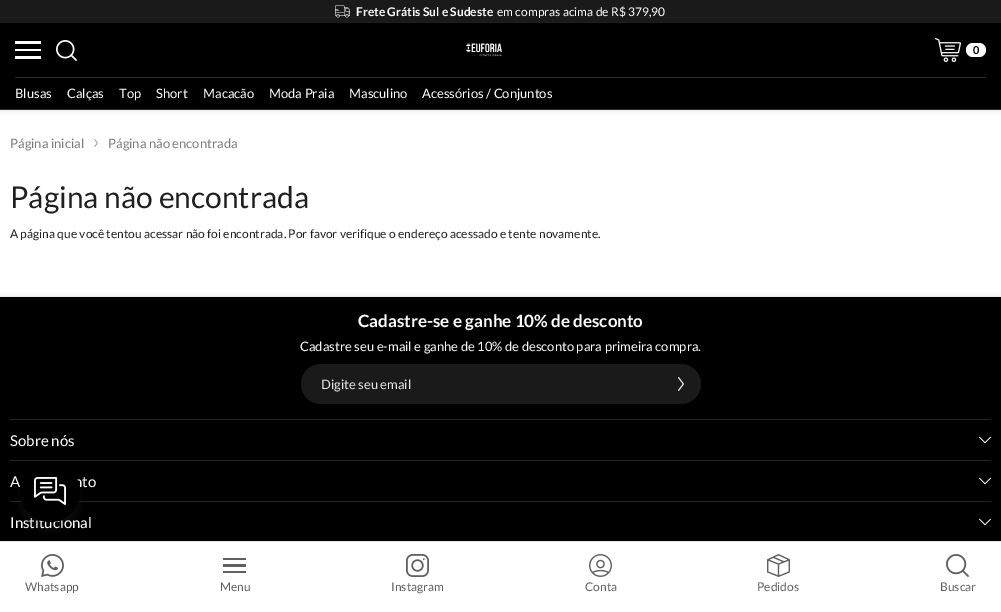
%!PS-Adobe-3.0
%%BoundingBox: 0 0 1001 612
%%LanguageLevel: 3
%%Pages: 1
%%EndComments
%%BeginProlog
/setalpha { dup .setfillconstantalpha .setstrokeconstantalpha } def
/rrect { 5 dict begin { /r /h /w /y /x } { exch def } forall
  x r add y moveto x w add y 2 copy h add r arct x w add y h add x 1 index r arct
  x y h add x y r arct x y 2 copy exch w add exch r arct closepath end } def
/softshadow { 12 dict begin { /a /b /q /h /w /y /x } { exch def } forall gsave /was 0 def
  9 -2 -9 { dup b mul 4 div /e exch def 1 sub .425 mul 2.718 exch exp 1 add a .99 .min exch div /now exch def
    1 1 now sub 1 was sub div sub setalpha /was now def
    w h .min e 2 mul add 0 gt { x e sub y e sub w e 2 mul add h e 2 mul add
      q e add b .6 mul add w h .min 2 div e add .min 0 .max rrect fill } if } for grestore end } def
/drawimage { 5 dict begin { /h /w /y /x /name } { exch def } forall
  gsave x y translate w h scale
  w h 8 [w 0 0 h 0 0] name (r) file false 3 colorimage grestore end } def
%%EndProlog
%%BeginSetup
<< /PageSize [1001 612] /PageUsesTransparency true >> setpagedevice
%%EndSetup
%%Page: 1 1
0 .pushpdf14devicefilter
0 612 translate 1 -1 scale
4 setmiterlimit
1 setgray
0 0 1001 612 rectfill
0.102 setgray
0 0 1001 23 rectfill
(images/1.raw) 335 5 15 13 drawimage
0.322 setgray
0 24 1001 87 0 2 0.13 softshadow
0 setgray
0 23 1001 86 rectfill
0.176 setgray
0 109 1001 1 rectfill
1 setgray
15 56 26 3 rectfill
15 49 26 2 rectfill
15 41 26 3 rectfill
(images/2.raw) 56 40 21 21 drawimage
(images/3.raw) 466 43 36 14 drawimage
(images/4.raw) 935 38 26 24 drawimage
966 43 20 14 7 rrect fill
0.176 setgray
15 77 971 1 rectfill
(images/5.raw) 94 139 4 8 drawimage
0.769 setgray
0 294 1001 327 0 3 0.18 softshadow
0.937 setgray
0 296 1001 1 rectfill
0 setgray
0 297 1001 244 rectfill
0.102 setgray
301 364 400 40 20 rrect fill
(images/6.raw) 678 377 6 14 drawimage
0.145 setgray
10 419 981 1 rectfill
(images/7.raw) 979 436 12 8 drawimage
10 460 981 1 rectfill
(images/7.raw) 979 477 12 8 drawimage
10 501 981 1 rectfill
(images/7.raw) 979 518 12 8 drawimage
0.404 setgray
20 472 60 60 30 4 0.1 softshadow
0.322 setgray
0 541 1001 71 0 2 0.08 softshadow
1 setgray
0 542 1001 70 rectfill
0.886 setgray
0 541 1001 1 rectfill
(images/9.raw) 41 554 23 23 drawimage
0.376 setgray
223 571 23 2 rectfill
223 564 23 3 rectfill
223 558 23 2 rectfill
(images/10.raw) 406 554 23 23 drawimage
(images/11.raw) 589 554 23 23 drawimage
(images/12.raw) 767 554 23 23 drawimage
(images/13.raw) 946 554 23 23 drawimage
/Lato-Bold [12 0 0 -12 0 0] selectfont
1 setgray
356 16 moveto (Frete Grátis Sul e Sudeste) show
/Lato-Regular [12 0 0 -12 0 0] selectfont
497 16 moveto (em compras acima de R$ 379,90) show
/Lato-Bold [11 0 0 -11 0 0] selectfont
0 setgray
973 54 moveto (0) show
/Lato-Regular [13 0 0 -13 0 0] selectfont
1 setgray
15 98 moveto (Blusas) show
67 98 moveto (Calças) show
119 98 moveto (Top) show
156 98 moveto (Short) show
203 98 moveto (Macacão) show
269 98 moveto (Moda Praia) show
349 98 moveto (Masculino) show
422 98 moveto (Acessórios / Conjuntos) show
0.482 setgray
10 148 moveto (Página inicial) show
108 148 moveto (Página não encontrada) show
/Lato-Regular [30 0 0 -30 0 0] selectfont
0.125 0.122 0.122 setrgbcolor
10 208 moveto (Página não encontrada) show
/Lato-Regular [12 0 0 -12 0 0] selectfont
10 238 moveto (A página que você tentou acessar não foi encontrada. Por favor verifique o endereço acessado e tente novamente.) show
/Lato-Bold [17 0 0 -17 0 0] selectfont
1 setgray
358 327 moveto (Cadastre-se e ganhe 10% de desconto) show
/Lato-Regular [13 0 0 -13 0 0] selectfont
300 351 moveto (Cadastre seu e-mail e ganhe de 10% de desconto para primeira compra.) show
0.914 setgray
321 389 moveto (Digite seu email) show
/Lato-Regular [15 0 0 -15 0 0] selectfont
1 setgray
10 446 moveto (Sobre nós) show
10 487 moveto (A) show
74 487 moveto (nto) show
10 528 moveto (Institucional) show
0 setgray
newpath 50 492 30 0 360 arc closepath fill
(images/8.raw) 34 477 32 28 drawimage
/Lato-Regular [12 0 0 -12 0 0] selectfont
0.376 setgray
25 591 moveto (Whatsapp) show
220 591 moveto (Menu) show
391 591 moveto (Instagram) show
585 591 moveto (Conta) show
757 591 moveto (Pedidos) show
940 591 moveto (Buscar) show
.poppdf14devicefilter showpage
%%EOF
